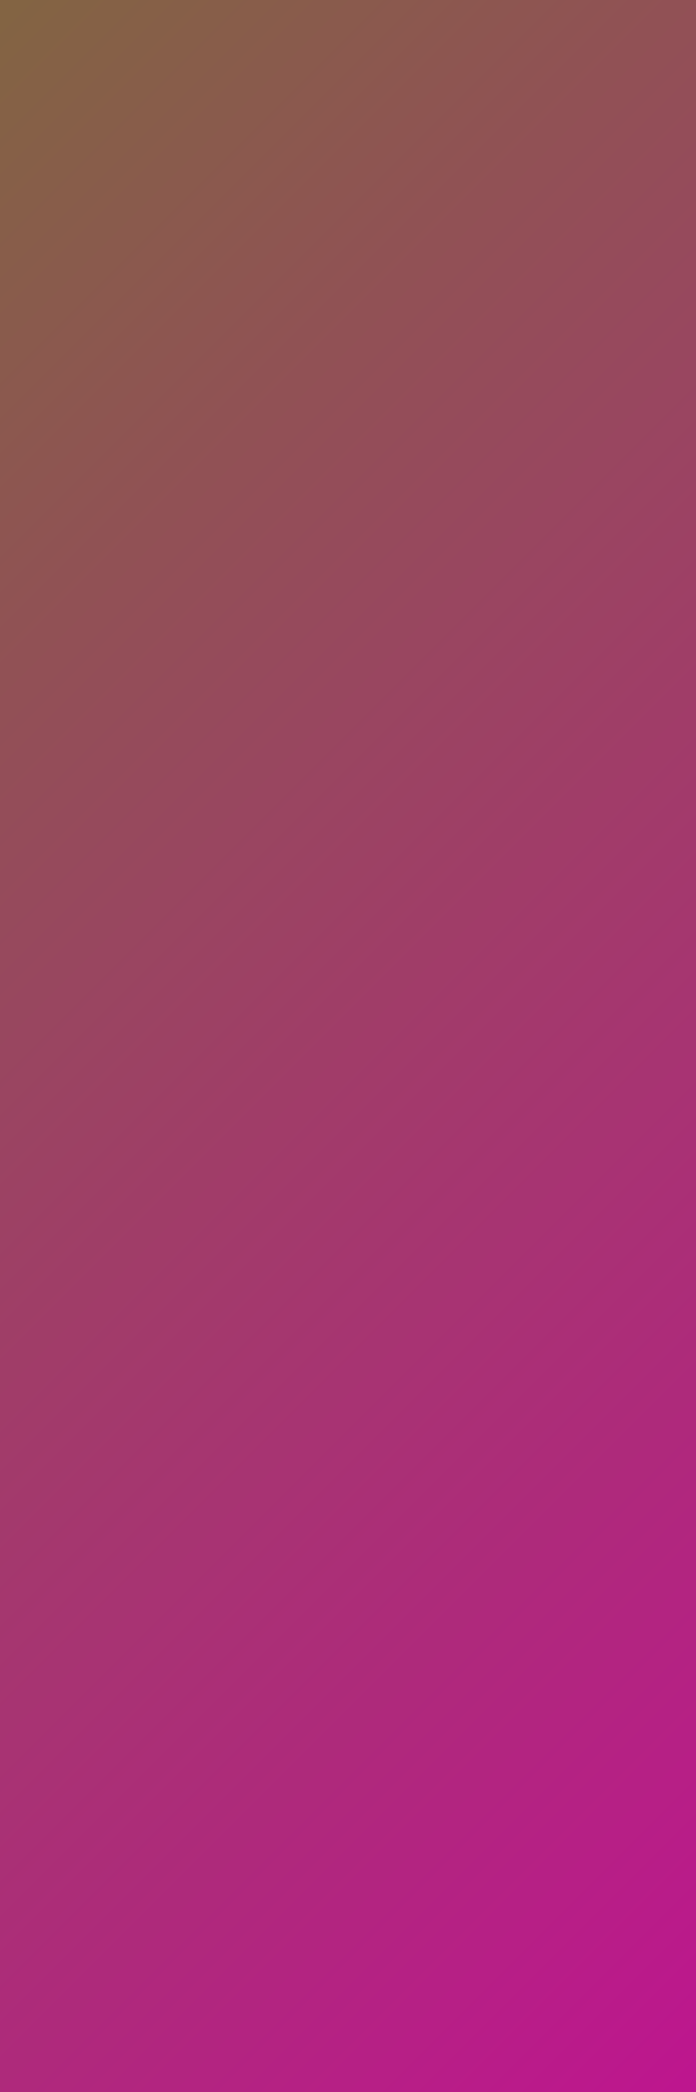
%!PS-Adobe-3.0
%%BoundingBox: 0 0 696 2092
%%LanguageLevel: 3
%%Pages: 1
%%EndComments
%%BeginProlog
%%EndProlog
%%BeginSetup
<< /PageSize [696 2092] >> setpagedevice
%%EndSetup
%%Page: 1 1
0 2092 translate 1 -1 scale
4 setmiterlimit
1 setgray
0 0 696 2092 rectfill
gsave newpath 0 0 moveto 696 0 lineto 696 2092 lineto 0 2092 lineto closepath clip newpath
<< /ShadingType 2 /ColorSpace /DeviceRGB /Coords [-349 349 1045 1743] /Extend [true true] /Function << /FunctionType 2 /Domain [0 1] /C0 [0.514 0.396 0.263] /C1 [0.745 0.086 0.561] /N 1 >> >> shfill grestore
showpage
%%EOF
